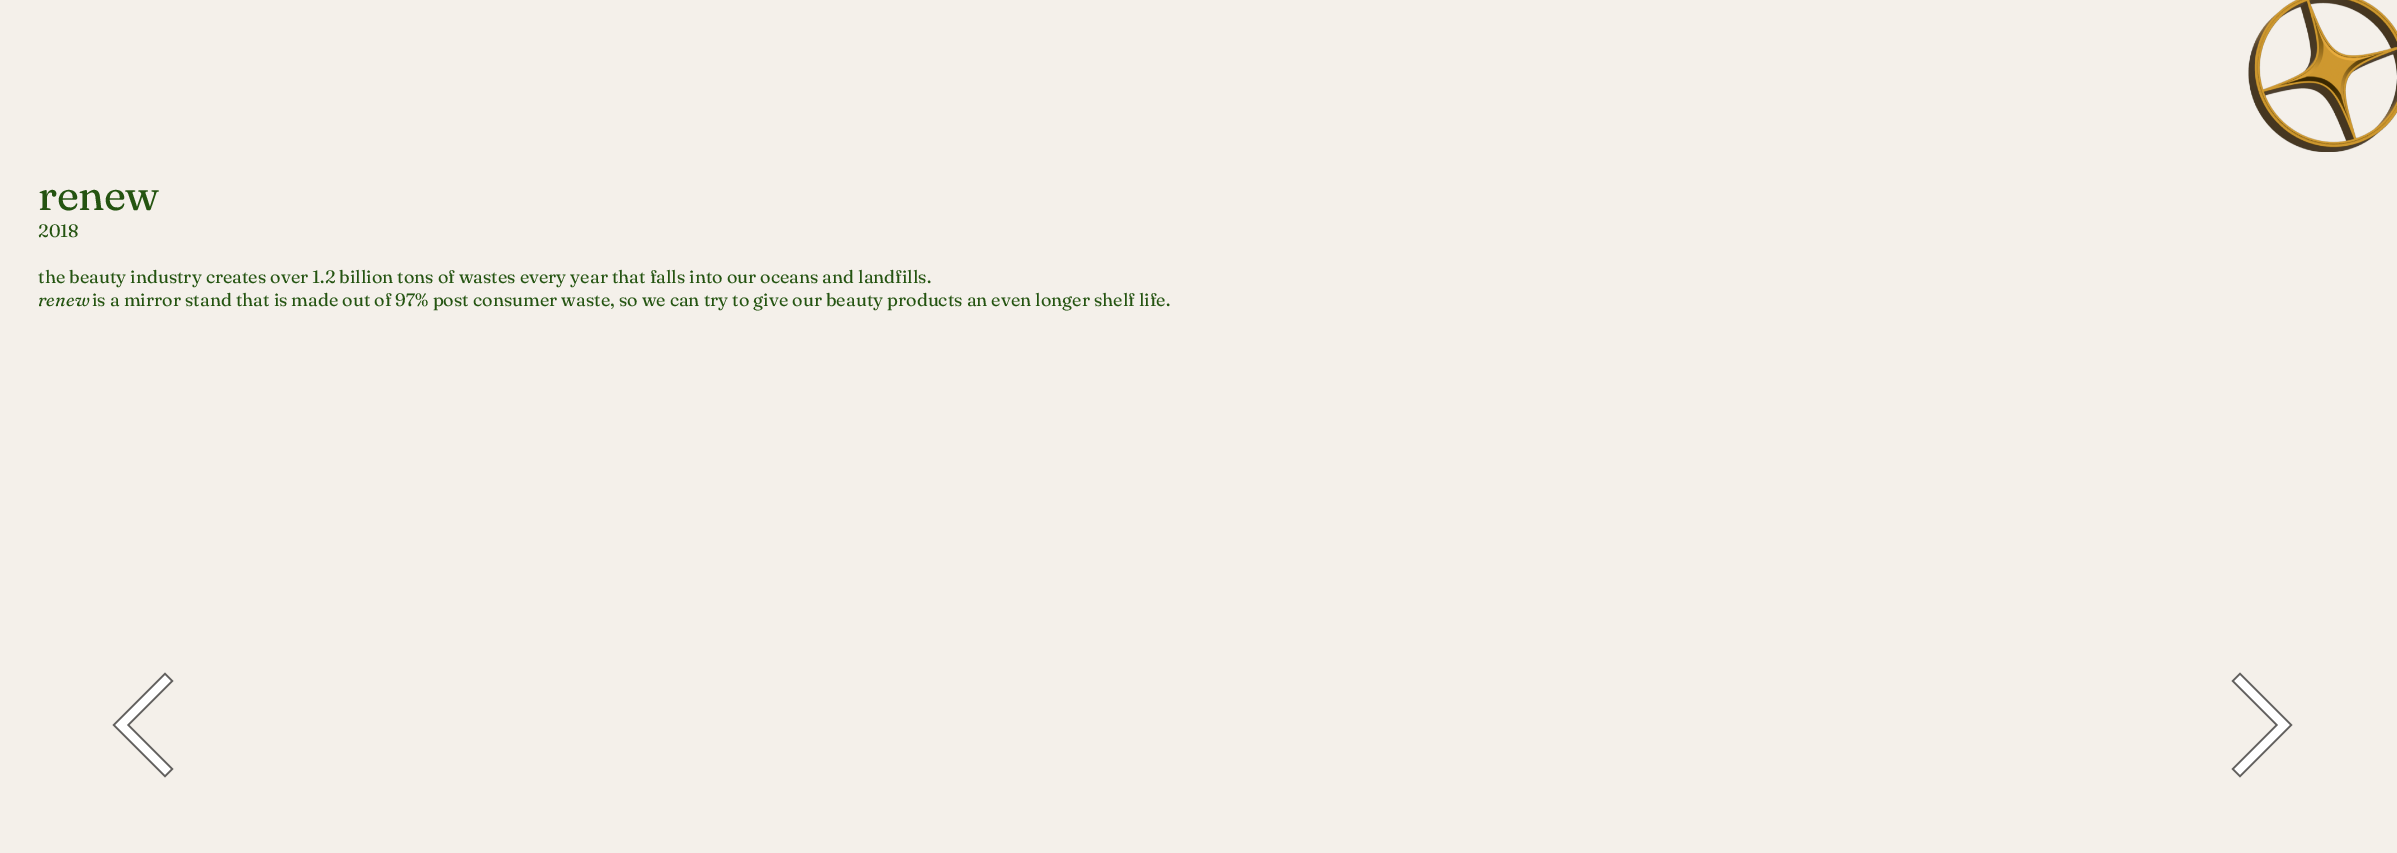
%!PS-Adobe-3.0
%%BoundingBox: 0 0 2397 853
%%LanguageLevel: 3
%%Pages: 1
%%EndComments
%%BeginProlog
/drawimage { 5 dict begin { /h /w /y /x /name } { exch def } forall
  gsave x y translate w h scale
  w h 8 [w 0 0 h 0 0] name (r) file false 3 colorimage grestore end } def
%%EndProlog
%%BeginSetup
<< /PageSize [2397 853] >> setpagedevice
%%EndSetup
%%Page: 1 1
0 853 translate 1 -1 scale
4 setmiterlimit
0.957 0.941 0.918 setrgbcolor
0 0 2397 853 rectfill
(images/1.raw) 2248 0 149 152 drawimage
0.384 0.376 0.369 setrgbcolor
12 setlinewidth
2 setlinecap
newpath 165 769 moveto 121 725 lineto 165 681 lineto stroke
1 setgray
8 setlinewidth
newpath 165 769 moveto 121 725 lineto 165 681 lineto stroke
0.384 0.376 0.369 setrgbcolor
12 setlinewidth
newpath 2240 769 moveto 2284 725 lineto 2240 681 lineto stroke
1 setgray
8 setlinewidth
newpath 2240 769 moveto 2284 725 lineto 2240 681 lineto stroke
/Fraunces-Regular [42 0 0 -42 0 0] selectfont
0.141 0.329 0.067 setrgbcolor
38 210 moveto -0.5 0 (renew) ashow
/Fraunces-Regular [17.92 0 0 -17.92 0 0] selectfont
38 237 moveto (2018) show
38 283 moveto -0.1 0 32 (the beauty industry creates over 1.2 billion tons of wastes every year that falls into our oceans and landfills.) widthshow
/Fraunces-Italic [17.92 0 0 -17.92 0 0] selectfont
38 306 moveto (renew) show
/Fraunces-Regular [17.92 0 0 -17.92 0 0] selectfont
92 306 moveto (is a mirror stand that is made out of 97% post consumer waste, so we can try to give our beauty products an even longer shelf life.) show
showpage
%%EOF
